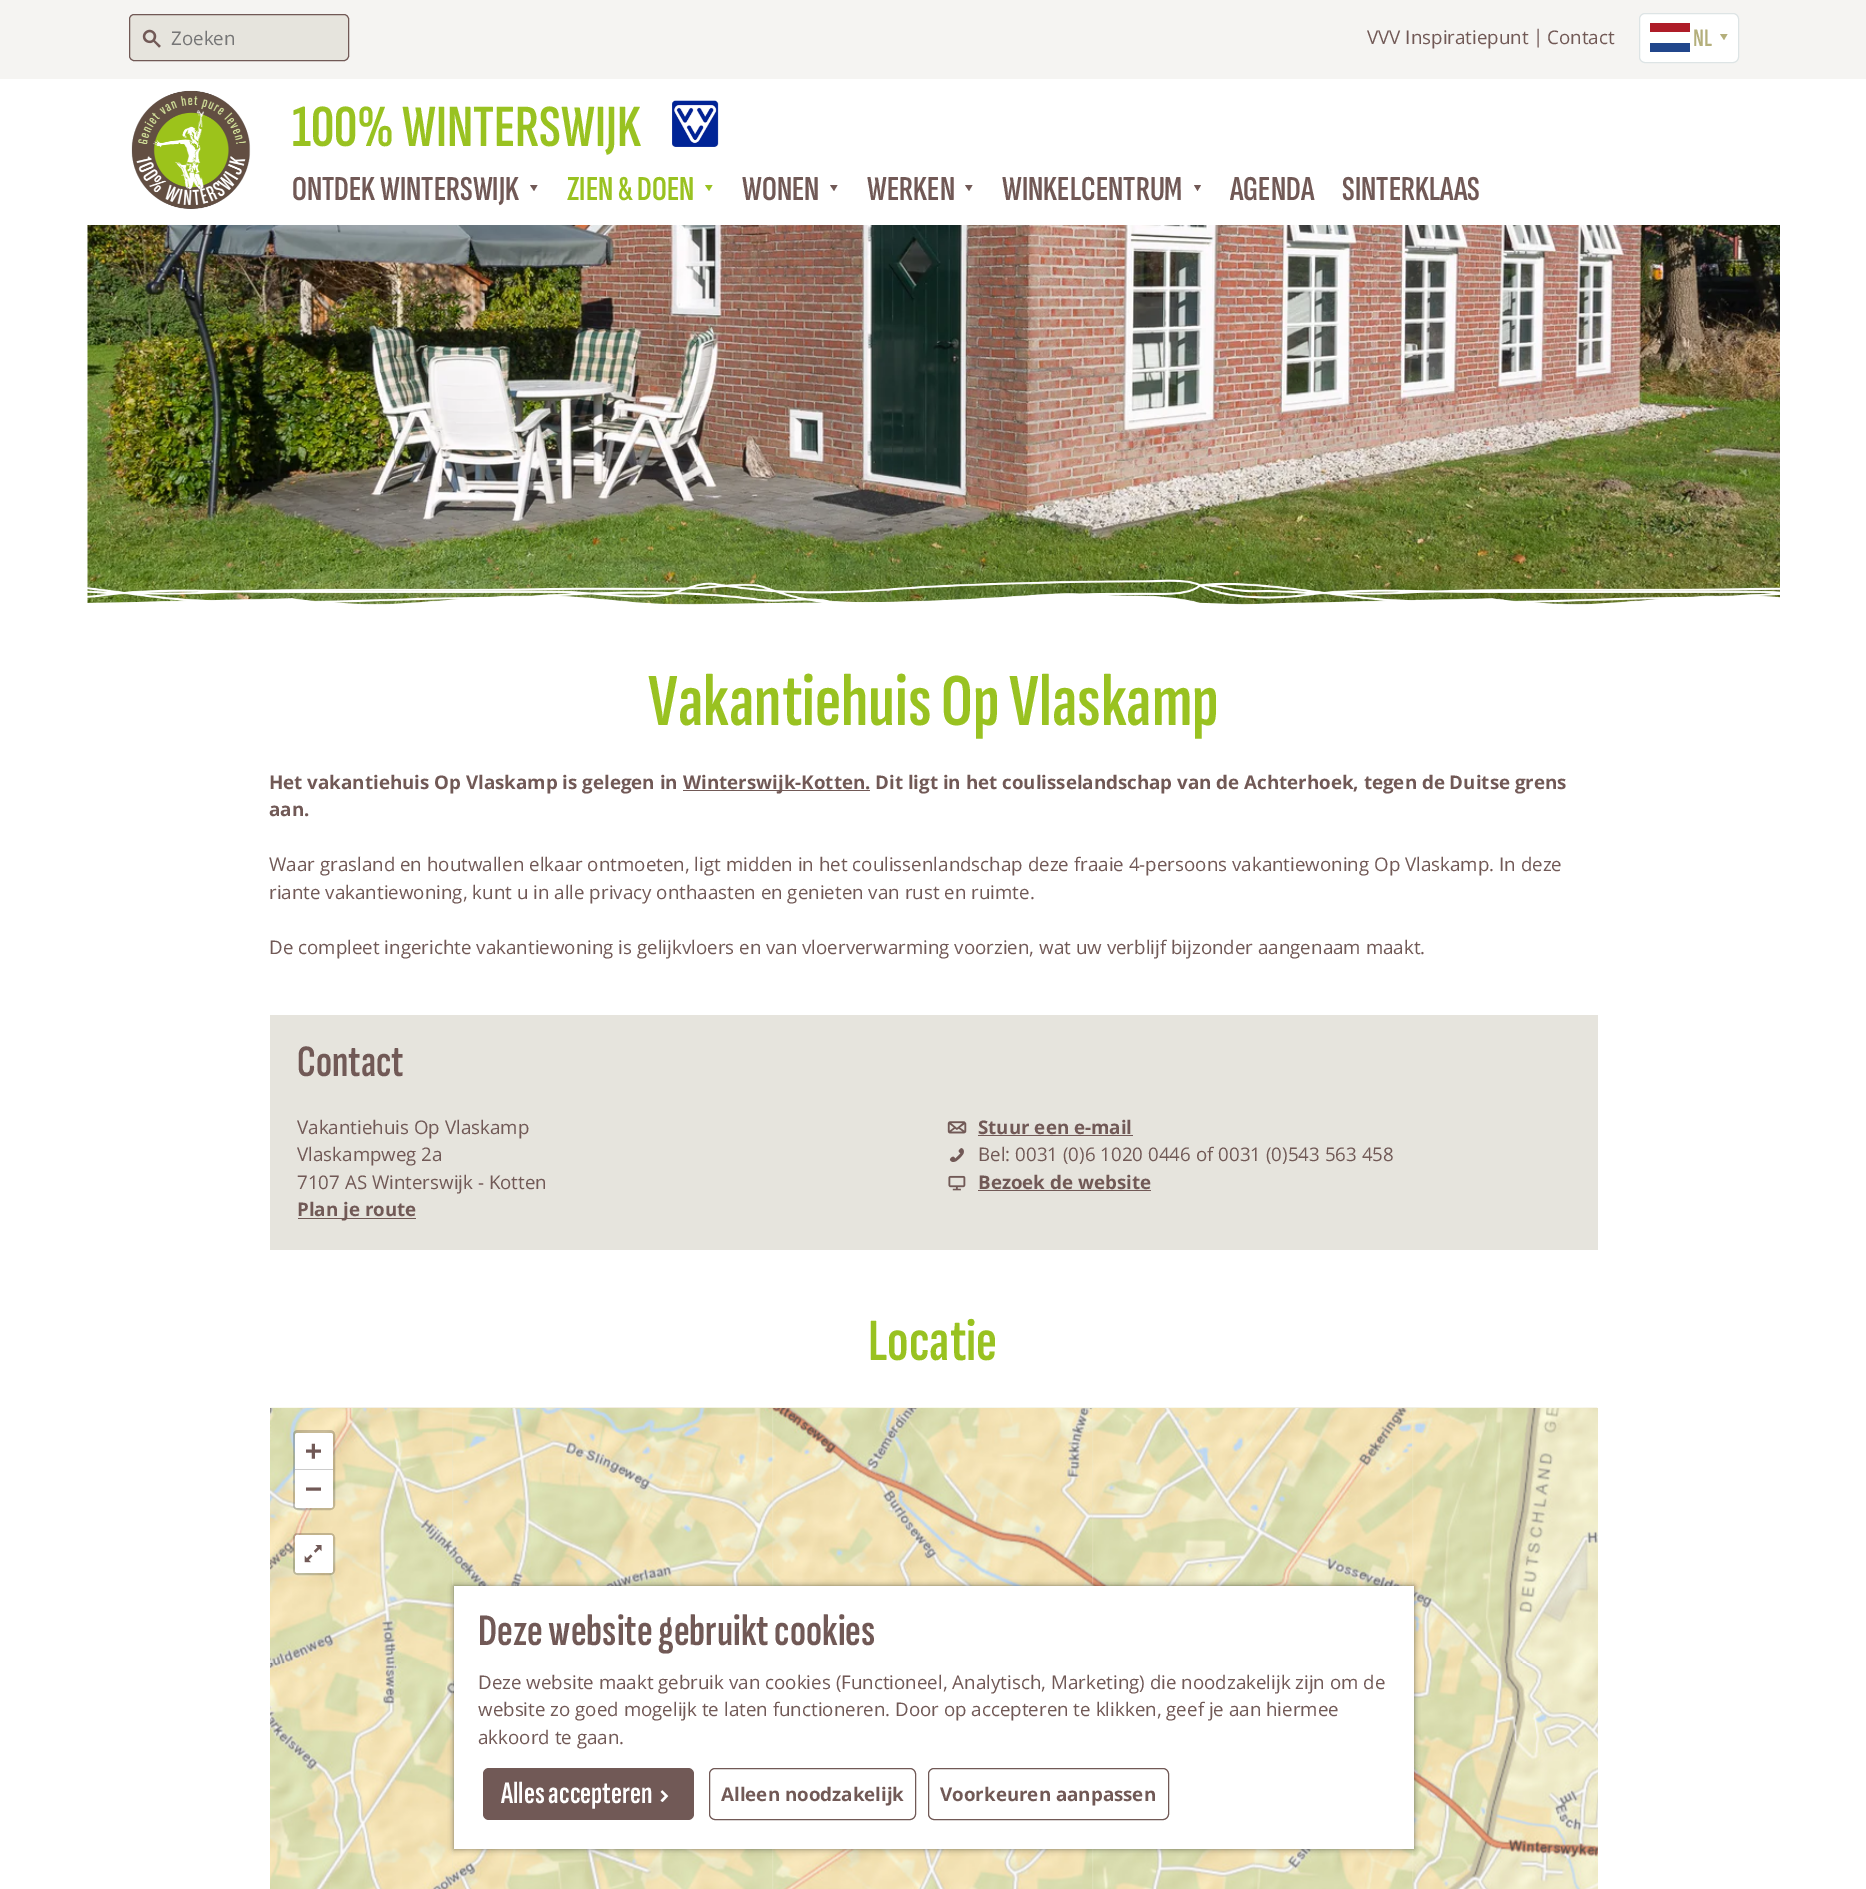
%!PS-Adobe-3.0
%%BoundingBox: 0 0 1866 1889
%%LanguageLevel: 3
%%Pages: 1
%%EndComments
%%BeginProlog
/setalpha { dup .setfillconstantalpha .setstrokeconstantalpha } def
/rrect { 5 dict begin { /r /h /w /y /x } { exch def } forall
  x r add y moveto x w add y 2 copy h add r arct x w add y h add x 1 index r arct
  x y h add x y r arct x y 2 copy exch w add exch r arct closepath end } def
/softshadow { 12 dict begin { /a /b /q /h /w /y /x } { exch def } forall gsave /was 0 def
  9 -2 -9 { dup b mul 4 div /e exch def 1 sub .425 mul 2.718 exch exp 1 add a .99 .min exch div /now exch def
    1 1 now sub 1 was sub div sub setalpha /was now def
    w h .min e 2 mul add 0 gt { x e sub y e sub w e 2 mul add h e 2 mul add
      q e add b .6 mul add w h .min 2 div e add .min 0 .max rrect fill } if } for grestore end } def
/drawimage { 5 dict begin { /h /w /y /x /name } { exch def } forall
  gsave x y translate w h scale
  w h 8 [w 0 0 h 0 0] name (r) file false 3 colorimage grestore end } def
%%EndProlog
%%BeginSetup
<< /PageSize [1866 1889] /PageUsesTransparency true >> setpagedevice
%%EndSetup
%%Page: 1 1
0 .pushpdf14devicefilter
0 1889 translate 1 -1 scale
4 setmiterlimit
1 setgray
0 0 1866 1889 rectfill
0.961 0.957 0.949 setrgbcolor
0 0 1866 79 rectfill
0.902 0.894 0.867 setrgbcolor
129.5 14.5 219 46 4.5 rrect gsave fill grestore
0.443 0.349 0.337 setrgbcolor
stroke
(images/1.raw) 142 29 19 19 drawimage
1 setgray
1639.5 13.5 99 49 5.5 rrect gsave fill grestore
0.867 0.894 0.898 setrgbcolor
stroke
0.129 0.275 0.545 setrgbcolor
1650 43 40 9 rectfill
0.682 0.11 0.157 setrgbcolor
1650 23 40 9 rectfill
0.706 0.686 0.482 setrgbcolor
newpath 1720 34 moveto 1727.5 34 lineto 1724 40 lineto closepath fill
(images/2.raw) 131 90 120 119 drawimage
(images/3.raw) 672 100 47 47 drawimage
0.443 0.349 0.337 setrgbcolor
newpath 530 185 moveto 537.5 185 lineto 534 191 lineto closepath fill
0.6 0.761 0.129 setrgbcolor
newpath 705 185 moveto 712.5 185 lineto 709 191 lineto closepath fill
0.443 0.349 0.337 setrgbcolor
newpath 830 185 moveto 837.5 185 lineto 834 191 lineto closepath fill
newpath 965 185 moveto 972.5 185 lineto 969 191 lineto closepath fill
newpath 1194 185 moveto 1201 185 lineto 1197.5 191 lineto closepath fill
(images/4.raw) 87 225 1693 380 drawimage
(images/5.raw) 87 579 1693 31 drawimage
683 790 187 1 rectfill
0.902 0.894 0.867 setrgbcolor
270 1015 1328 235 rectfill
0.443 0.349 0.337 setrgbcolor
298 1218 118 1 rectfill
(images/6.raw) 947 1121 20 13 drawimage
978 1135 155 1 rectfill
(images/7.raw) 949 1148 15 14 drawimage
(images/8.raw) 948 1175 18 16 drawimage
978 1190 173 1 rectfill
(images/9.raw) 270 1407 1328 482 drawimage
(images/12.raw) 772 1408 321 178 drawimage
(images/11.raw) 452 1408 321 255 drawimage
(images/10.raw) 270 1408 183 255 drawimage
(images/13.raw) 1092 1408 321 178 drawimage
(images/14.raw) 1412 1408 186 255 drawimage
(images/17.raw) 772 1849 321 40 drawimage
(images/16.raw) 452 1663 321 226 drawimage
(images/15.raw) 270 1663 183 226 drawimage
(images/18.raw) 1092 1849 321 40 drawimage
(images/19.raw) 1412 1663 186 226 drawimage
0.2 setalpha
0 setgray
3 setlinewidth
294.5 1431.5 39 77 3.5 rrect stroke
1 setalpha
1 setgray
newpath 297.5 1433 moveto 330.5 1433 lineto 332 1433 333 1434 333 1435.5 curveto 333 1470 lineto 295 1470 lineto 295 1435.5 lineto 295 1434 296 1433 297.5 1433 curveto closepath fill
0.8 setgray
295 1469 38 1 rectfill
1 setgray
newpath 295 1470 moveto 333 1470 lineto 333 1505.5 lineto 333 1507 332 1508 330.5 1508 curveto 297.5 1508 lineto 296 1508 295 1507 295 1505.5 curveto closepath fill
0.2 setalpha
0 setgray
294.5 1534.5 39 39 3.5 rrect stroke
1 setalpha
1 setgray
295 1535 38 38 2.5 rrect fill
(images/20.raw) 304 1545 18 18 drawimage
0 setgray
454 1586 960 263 0 3 0.5 softshadow
1 setgray
454 1586 960 263 rectfill
0.443 0.349 0.337 setrgbcolor
483 1768 211 52 6 rrect fill
(images/21.raw) 660 1790 9 12 drawimage
1 setlinewidth
709.5 1768.5 206 51 5.5 rrect stroke
928.5 1768.5 240 51 5.5 rrect stroke
/OpenSans-Regular [18.75 0 0 -18.75 0 0] selectfont
0.463 setgray
171 45 moveto (Zoeken) show
0.443 0.349 0.337 setrgbcolor
1367 44 moveto (VVV Inspiratiepunt) show
1533 43 moveto (|) show
1547 44 moveto (Contact) show
/SofiaSansExtraCondensed-SemiBold [25 0 0 -25 0 0] selectfont
0.706 0.686 0.482 setrgbcolor
1693 46 moveto (NL) show
/SofiaSansExtraCondensed-SemiBold [60 0 0 -60 0 0] selectfont
0.6 0.761 0.129 setrgbcolor
292 146 moveto (100% WINTERSWIJK) show
/SofiaSansExtraCondensed-SemiBold [35 0 0 -35 0 0] selectfont
0.443 0.349 0.337 setrgbcolor
292 200 moveto (ONTDEK WINTERSWIJK) show
0.6 0.761 0.129 setrgbcolor
567 200 moveto (ZIEN & DOEN) show
0.443 0.349 0.337 setrgbcolor
742 200 moveto (WONEN) show
867 200 moveto (WERKEN) show
1002 200 moveto (WINKELCENTRUM) show
1230 200 moveto (AGENDA) show
1342 200 moveto (SINTERKLAAS) show
/SofiaSansExtraCondensed-SemiBold [75 0 0 -75 0 0] selectfont
0.6 0.761 0.129 setrgbcolor
648 725 moveto (Vakantiehuis Op Vlaskamp) show
/OpenSans-Bold [18.75 0 0 -18.75 0 0] selectfont
0.443 0.349 0.337 setrgbcolor
269 789 moveto (Het vakantiehuis Op Vlaskamp is gelegen in) show
683 789 moveto (Winterswijk-Kotten.) show
875 789 moveto (Dit ligt in het coulisselandschap van de Achterhoek, tegen de Duitse grens) show
269 816 moveto (aan.) show
/OpenSans-Regular [18.75 0 0 -18.75 0 0] selectfont
269 871 moveto (Waar grasland en houtwallen elkaar ontmoeten, ligt midden in het coulissenlandschap deze fraaie 4-persoons vakantiewoning Op Vlaskamp. In deze) show
269 899 moveto (riante vakantiewoning, kunt u in alle privacy onthaasten en genieten van rust en ruimte.) show
269 954 moveto (De compleet ingerichte vakantiewoning is gelijkvloers en van vloerverwarming voorzien, wat uw verblijf bijzonder aangenaam maakt.) show
/SofiaSansExtraCondensed-SemiBold [45 0 0 -45 0 0] selectfont
297 1076 moveto (Contact) show
/OpenSans-Regular [18.75 0 0 -18.75 0 0] selectfont
297 1134 moveto (Vakantiehuis Op Vlaskamp) show
297 1161 moveto (Vlaskampweg 2a) show
297 1189 moveto (7107 AS Winterswijk - Kotten) show
/OpenSans-Bold [18.75 0 0 -18.75 0 0] selectfont
297 1216 moveto (Plan je route) show
978 1134 moveto (Stuur een e-mail) show
/OpenSans-Regular [18.75 0 0 -18.75 0 0] selectfont
978 1161 moveto (Bel: 0031 \(0\)6 1020 0446 of 0031 \(0\)543 563 458) show
/OpenSans-Bold [18.75 0 0 -18.75 0 0] selectfont
978 1189 moveto (Bezoek de website) show
/SofiaSansExtraCondensed-SemiBold [60 0 0 -60 0 0] selectfont
0.6 0.761 0.129 setrgbcolor
868 1360 moveto (Locatie) show
/DejaVuSansMono-Bold [28 0 0 -28 0 0] selectfont
0.443 0.349 0.337 setrgbcolor
305 1460 moveto (+) show
305 1498 moveto (−) show
/SofiaSansExtraCondensed-SemiBold [45 0 0 -45 0 0] selectfont
478 1645 moveto (Deze website gebruikt cookies) show
/OpenSans-Regular [18.75 0 0 -18.75 0 0] selectfont
478 1689 moveto (Deze website maakt gebruik van cookies \(Functioneel, Analytisch, Marketing\) die noodzakelijk zijn om de) show
478 1716 moveto (website zo goed mogelijk te laten functioneren. Door op accepteren te klikken, geef je aan hiermee) show
478 1744 moveto (akkoord te gaan.) show
/SofiaSansExtraCondensed-SemiBold [31.25 0 0 -31.25 0 0] selectfont
1 setgray
501 1803 moveto (Alles accepteren) show
/OpenSans-Bold [18.75 0 0 -18.75 0 0] selectfont
0.443 0.349 0.337 setrgbcolor
721 1801 moveto (Alleen noodzakelijk) show
940 1801 moveto (Voorkeuren aanpassen) show
.poppdf14devicefilter showpage
%%EOF
